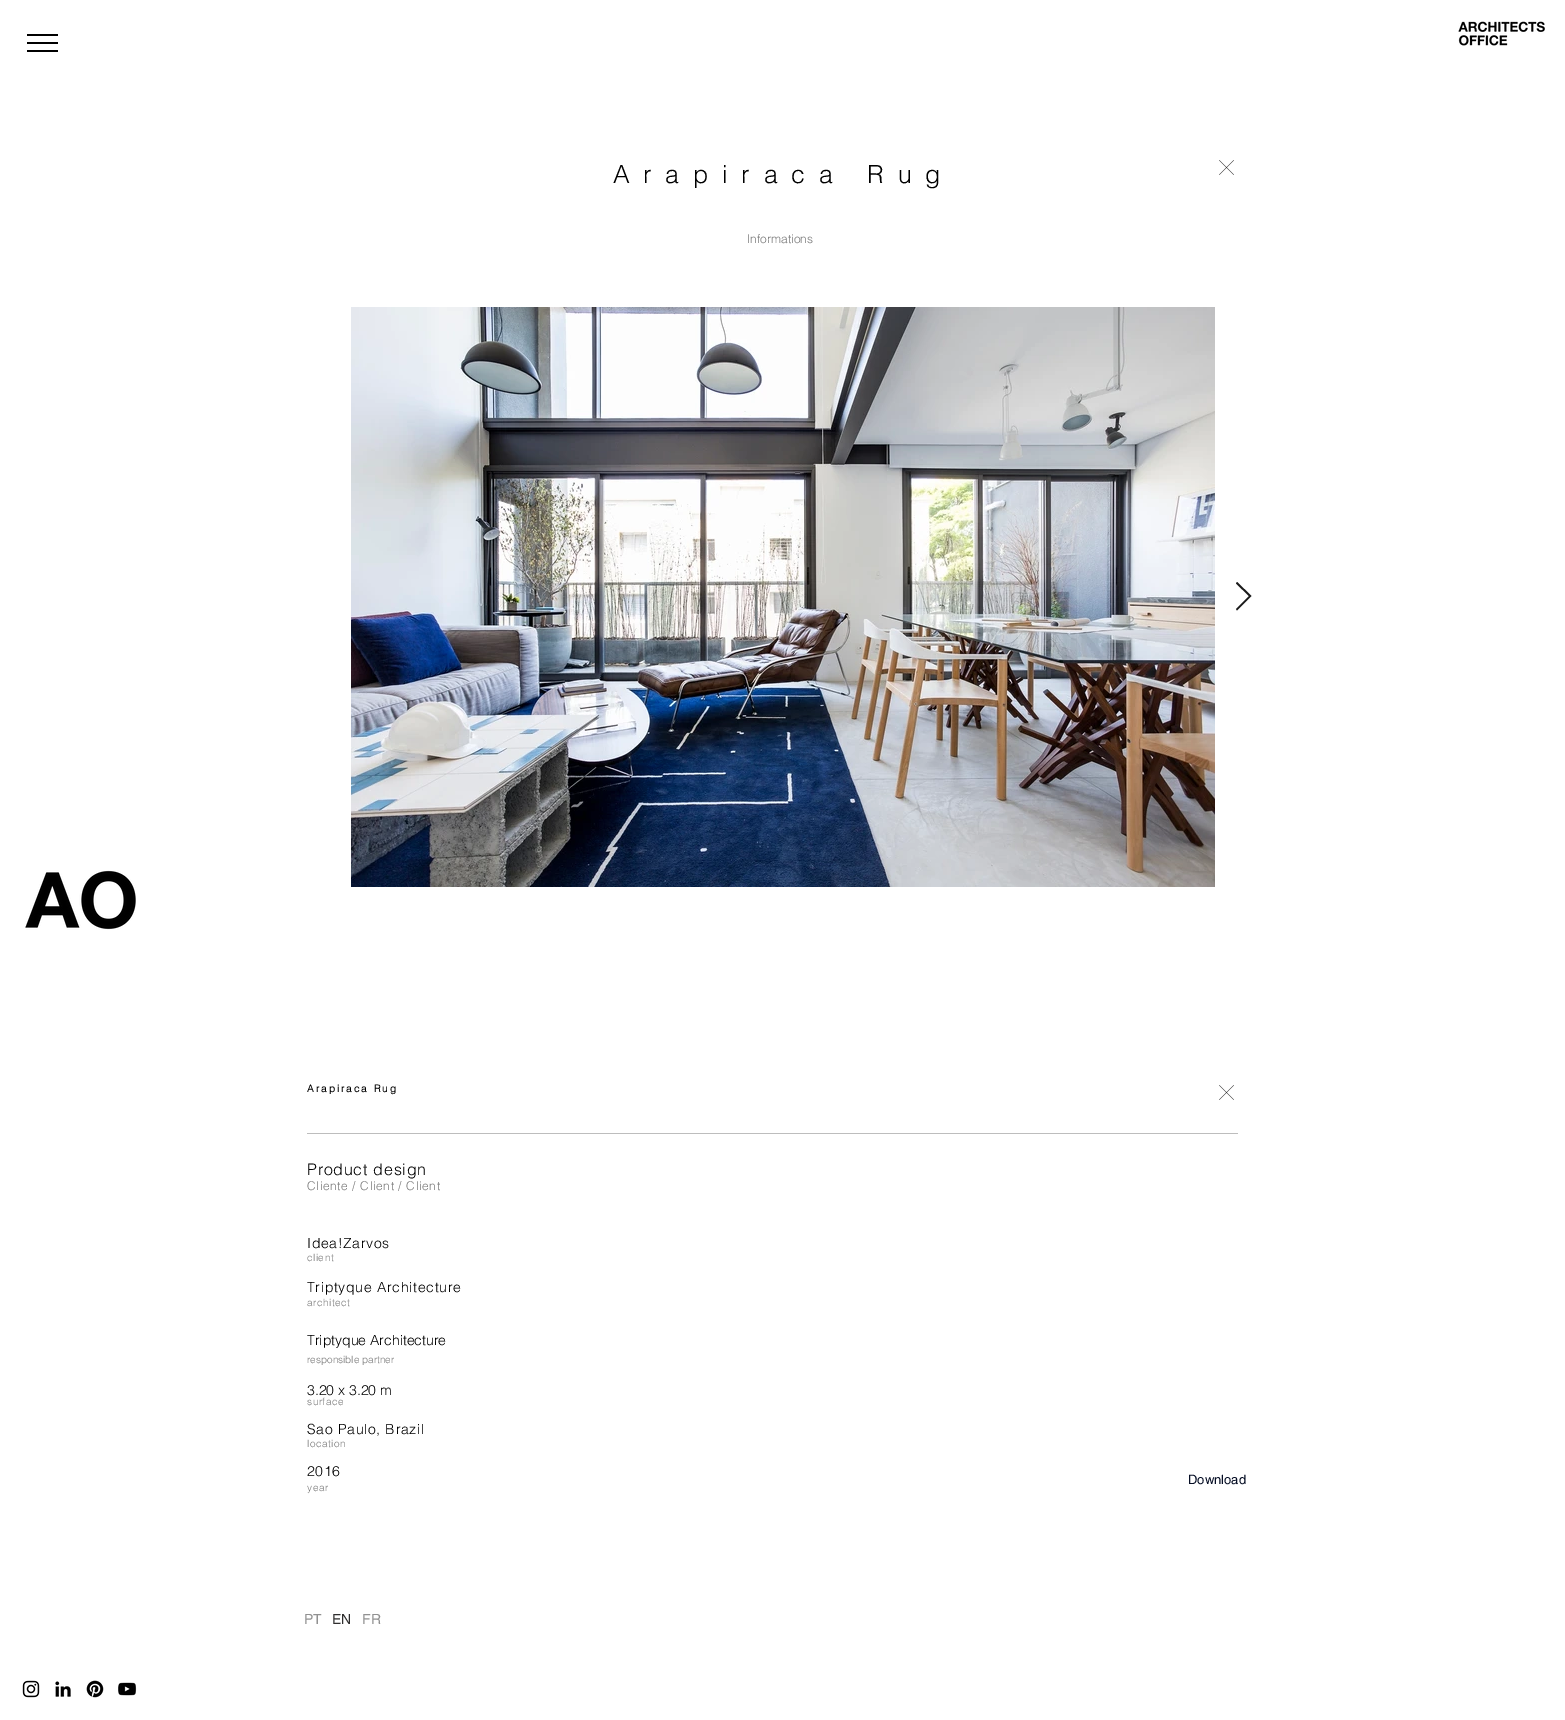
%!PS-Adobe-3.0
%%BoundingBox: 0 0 1565 1720
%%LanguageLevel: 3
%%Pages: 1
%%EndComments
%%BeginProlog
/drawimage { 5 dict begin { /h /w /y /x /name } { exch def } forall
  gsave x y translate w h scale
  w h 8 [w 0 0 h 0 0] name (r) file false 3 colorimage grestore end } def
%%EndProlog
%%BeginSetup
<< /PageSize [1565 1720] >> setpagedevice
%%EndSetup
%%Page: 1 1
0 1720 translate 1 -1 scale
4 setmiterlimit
1 setgray
0 0 1565 1720 rectfill
0 setgray
27 34 31 2 rectfill
27 42 31 2 rectfill
27 50 31 2 rectfill
(images/1.raw) 1458 21 87 25 drawimage
(images/2.raw) 25 870 111 60 drawimage
(images/3.raw) 1219 160 15 15 drawimage
(images/4.raw) 351 307 864 580 drawimage
0.102 setgray
newpath 1236 583.5 moveto 1237 582 lineto 1251.5 596 lineto 1237 610.5 lineto 1236 609 lineto 1249 596 lineto closepath fill
(images/3.raw) 1219 1085 15 15 drawimage
0.741 setgray
307 1133 931 1 rectfill
(images/5.raw) 22 1680 18 18 drawimage
(images/6.raw) 55 1681 16 16 drawimage
(images/7.raw) 86 1680 18 18 drawimage
(images/8.raw) 118 1682 19 14 drawimage
/helvetica-Light [25 0 0 -25 0 0] selectfont
0 setgray
613 183 moveto 13.75 0 (Arapiraca Rug) ashow
/helvetica-Light [12 0 0 -12 0 0] selectfont
0.478 setgray
747 243 moveto (Informations) show
/helvetica-Bold [10 0 0 -10 0 0] selectfont
0 setgray
307 1092 moveto 2 0 (Arapiraca Rug) ashow
/helvetica-Light [16 0 0 -16 0 0] selectfont
307 1175 moveto 0.75 0 (Product design) ashow
/helvetica-Light [12 0 0 -12 0 0] selectfont
0.478 setgray
307 1190 moveto 0.6 0 (Cliente / Client / Client) ashow
/helvetica-Light [14 0 0 -14 0 0] selectfont
0 setgray
307 1248 moveto 0.7 0 (Idea!Zarvos) ashow
/helvetica-Light [10 0 0 -10 0 0] selectfont
0.478 setgray
307 1261 moveto 0.5 0 (client) ashow
/helvetica-Light [14 0 0 -14 0 0] selectfont
0 setgray
307 1292 moveto 0.7 0 (Triptyque Architecture) ashow
/helvetica-Light [10 0 0 -10 0 0] selectfont
0.478 setgray
307 1306 moveto 0.5 0 (architect) ashow
/helvetica-Light [14 0 0 -14 0 0] selectfont
0 setgray
307 1345 moveto (Triptyque Architecture) show
/helvetica-Light [10 0 0 -10 0 0] selectfont
0.478 setgray
307 1363 moveto (responsible partner) show
/helvetica-Light [14 0 0 -14 0 0] selectfont
0 setgray
307 1395 moveto (3.20 x 3.20 m) show
/helvetica-Light [10 0 0 -10 0 0] selectfont
0.478 setgray
307 1405 moveto 0.5 0 (surface) ashow
/helvetica-Light [14 0 0 -14 0 0] selectfont
0 setgray
307 1434 moveto 0.7 0 (Sao Paulo, Brazil) ashow
/helvetica-Light [10 0 0 -10 0 0] selectfont
0.478 setgray
307 1447 moveto 0.5 0 (location) ashow
/helvetica-Light [14 0 0 -14 0 0] selectfont
0 setgray
307 1476 moveto 0.7 0 (2016) ashow
/helvetica-Regular [13 0 0 -13 0 0] selectfont
0.024 0.055 0.145 setrgbcolor
1188 1484 moveto (Download) show
/helvetica-Light [10 0 0 -10 0 0] selectfont
0.478 setgray
307 1491 moveto 0.5 0 (year) ashow
/helvetica-Regular [14 0 0 -14 0 0] selectfont
0.569 setgray
304 1624 moveto (PT) show
0.184 0.18 0.18 setrgbcolor
332 1624 moveto (EN) show
0.569 setgray
362 1624 moveto (FR) show
showpage
%%EOF
